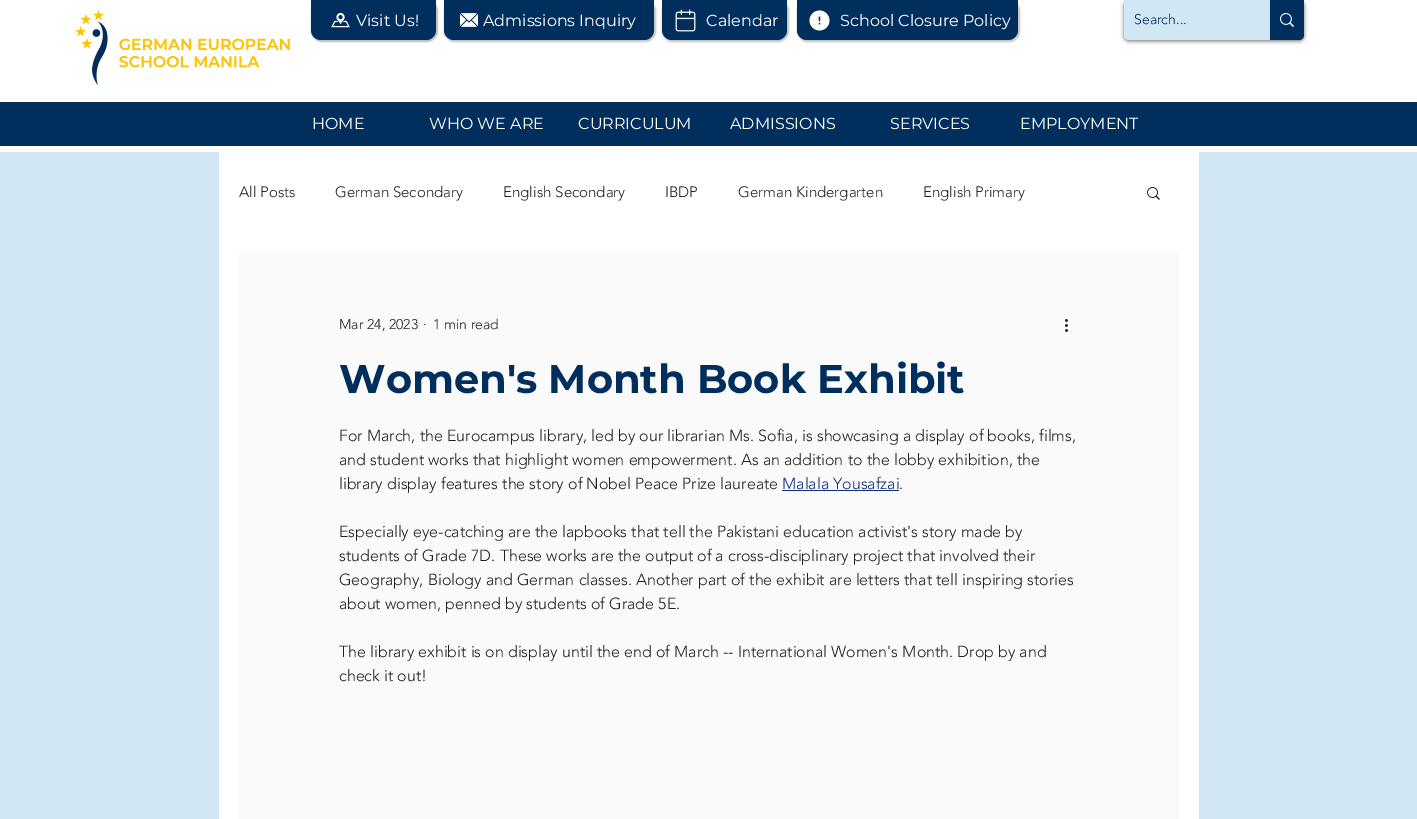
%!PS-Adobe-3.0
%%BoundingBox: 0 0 1417 819
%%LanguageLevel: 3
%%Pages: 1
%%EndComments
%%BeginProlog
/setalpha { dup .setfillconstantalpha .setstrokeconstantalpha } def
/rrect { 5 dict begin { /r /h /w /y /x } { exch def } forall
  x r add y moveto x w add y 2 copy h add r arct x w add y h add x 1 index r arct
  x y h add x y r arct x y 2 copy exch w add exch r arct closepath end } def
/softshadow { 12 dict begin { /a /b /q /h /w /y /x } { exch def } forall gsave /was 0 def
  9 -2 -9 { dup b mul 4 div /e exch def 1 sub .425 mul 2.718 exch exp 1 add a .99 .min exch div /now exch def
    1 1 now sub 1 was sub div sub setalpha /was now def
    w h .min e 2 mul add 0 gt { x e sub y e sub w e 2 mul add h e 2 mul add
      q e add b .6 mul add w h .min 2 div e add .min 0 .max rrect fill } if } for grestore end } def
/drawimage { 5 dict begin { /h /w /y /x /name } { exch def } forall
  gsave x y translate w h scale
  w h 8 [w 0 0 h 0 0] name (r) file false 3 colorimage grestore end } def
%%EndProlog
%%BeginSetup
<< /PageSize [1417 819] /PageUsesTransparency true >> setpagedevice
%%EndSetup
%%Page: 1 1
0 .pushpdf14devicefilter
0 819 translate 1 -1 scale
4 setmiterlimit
0.82 0.906 0.957 setrgbcolor
0 0 1417 819 rectfill
1 setgray
0 0 1417 152 rectfill
(images/1.raw) 75 10 215 75 drawimage
0 setgray
1124 1 180 40 5 2 0.6 softshadow
0.82 0.906 0.957 setrgbcolor
newpath 1124 0 moveto 1304 0 lineto 1304 35 lineto 1304 38 1302 40 1299 40 curveto 1129 40 lineto 1126 40 1124 38 1124 35 curveto closepath fill
0 0.18 0.365 setrgbcolor
newpath 1270 0 moveto 1304 0 lineto 1304 35 lineto 1304 38 1302 40 1299 40 curveto 1270 40 lineto closepath fill
(images/2.raw) 1280 13 14 14 drawimage
0 102 1417 44 rectfill
0.651 setgray
311 0 127 42 11 0.5 0.7 softshadow
0 0.18 0.365 setrgbcolor
newpath 311 0 moveto 436 0 lineto 436 30 lineto 436 35.5 431.5 40 426 40 curveto 321 40 lineto 315.5 40 311 35.5 311 30 curveto closepath fill
(images/3.raw) 331 12 19 16 drawimage
0.651 setgray
444 0 212 42 11 1 0.7 softshadow
0 0.18 0.365 setrgbcolor
newpath 444 0 moveto 654 0 lineto 654 30 lineto 654 35.5 649.5 40 644 40 curveto 454 40 lineto 448.5 40 444 35.5 444 30 curveto closepath fill
(images/4.raw) 460 13 18 14 drawimage
0.651 setgray
662 0 127 42 11 1 0.73 softshadow
0 0.18 0.365 setrgbcolor
newpath 662 0 moveto 787 0 lineto 787 30 lineto 787 35.5 782.5 40 777 40 curveto 672 40 lineto 666.5 40 662 35.5 662 30 curveto closepath fill
(images/5.raw) 675 9 21 23 drawimage
0.651 setgray
797 0 223 42 11 1 0.73 softshadow
0 0.18 0.365 setrgbcolor
newpath 797 0 moveto 1018 0 lineto 1018 30 lineto 1018 35.5 1013.5 40 1008 40 curveto 807 40 lineto 801.5 40 797 35.5 797 30 curveto closepath fill
(images/6.raw) 809 10 21 21 drawimage
1 setgray
219 152 980 667 rectfill
(images/7.raw) 1147 187 13 13 drawimage
0.98 setgray
239 252 940 567 rectfill
(images/8.raw) 1065 319 3 13 drawimage
0.063 0.176 0.486 setrgbcolor
782 490 117 1 rectfill
/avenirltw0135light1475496-Light [14 0 0 -14 0 0] selectfont
0 0.18 0.365 setrgbcolor
1134 24 moveto (Search...) show
/Montserrat-Regular [16 0 0 -16 0 0] selectfont
1 setgray
312 129 moveto (HOME) show
429 129 moveto (WHO WE ARE) show
578 129 moveto (CURRICULUM) show
730 129 moveto (ADMISSIONS) show
890 129 moveto (SERVICES) show
1020 129 moveto (EMPLOYMENT) show
356 26 moveto (Visit Us!) show
483 26 moveto (Admissions Inquiry) show
706 26 moveto (Calendar) show
840 26 moveto (School Closure Policy) show
/avenirltw0135light1475496-Light [15 0 0 -15 0 0] selectfont
0.129 setgray
239 197 moveto (All Posts) show
335 197 moveto (German Secondary) show
503 197 moveto (English Secondary) show
665 197 moveto (IBDP) show
738 197 moveto (German Kindergarten) show
923 197 moveto (English Primary) show
/avenirltw0135light1475496-Light [14 0 0 -14 0 0] selectfont
339 329 moveto (Mar 24, 2023) show
423 329 moveto (·) show
433 329 moveto (1 min read) show
/Montserrat-Bold [40 0 0 -40 0 0] selectfont
0 0.18 0.365 setrgbcolor
339 393 moveto (Women's Month Book Exhibit) show
/avenirltw0135light1475496-Light [16 0 0 -16 0 0] selectfont
0.129 setgray
339 441 moveto (For March, the Eurocampus library, led by our librarian Ms. Sofia, is showcasing a display of books, films,) show
339 465 moveto (and student works that highlight women empowerment. As an addition to the lobby exhibition, the) show
339 489 moveto (library display features the story of Nobel Peace Prize laureate) show
0.063 0.176 0.486 setrgbcolor
782 489 moveto (Malala Yousafzai) show
0.129 setgray
899 489 moveto (.) show
339 537 moveto (Especially eye-catching are the lapbooks that tell the Pakistani education activist's story made by) show
339 561 moveto (students of Grade 7D. These works are the output of a cross-disciplinary project that involved their) show
339 585 moveto (Geography, Biology and German classes. Another part of the exhibit are letters that tell inspiring stories) show
339 609 moveto (about women, penned by students of Grade 5E.) show
339 657 moveto (The library exhibit is on display until the end of March -- International Women's Month. Drop by and) show
339 681 moveto (check it out!) show
.poppdf14devicefilter showpage
%%EOF
